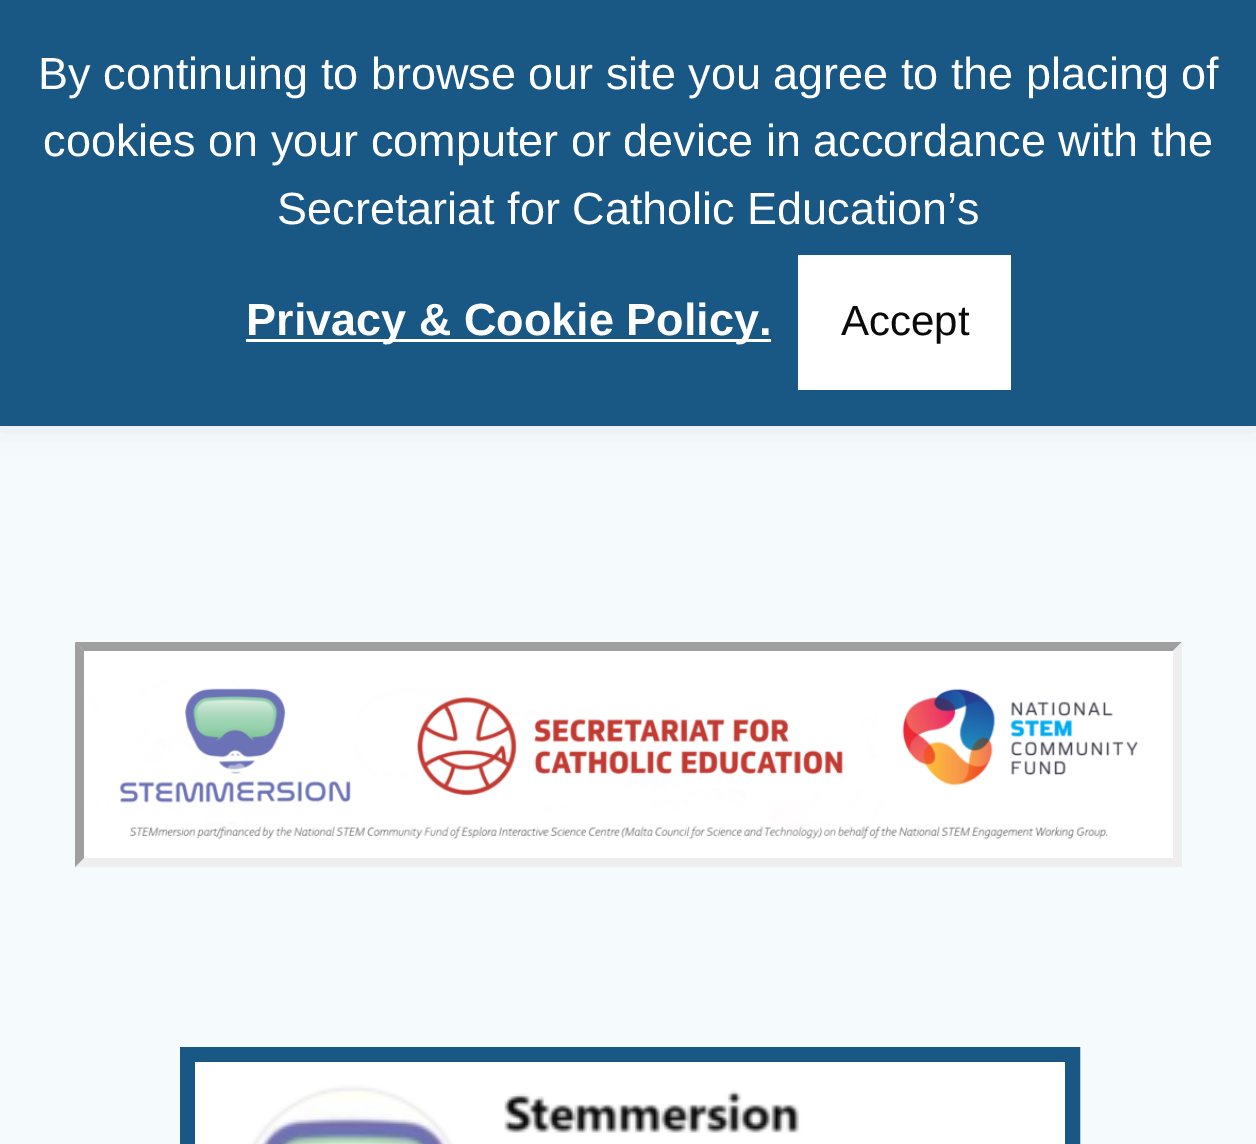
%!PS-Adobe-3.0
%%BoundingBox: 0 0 1256 1144
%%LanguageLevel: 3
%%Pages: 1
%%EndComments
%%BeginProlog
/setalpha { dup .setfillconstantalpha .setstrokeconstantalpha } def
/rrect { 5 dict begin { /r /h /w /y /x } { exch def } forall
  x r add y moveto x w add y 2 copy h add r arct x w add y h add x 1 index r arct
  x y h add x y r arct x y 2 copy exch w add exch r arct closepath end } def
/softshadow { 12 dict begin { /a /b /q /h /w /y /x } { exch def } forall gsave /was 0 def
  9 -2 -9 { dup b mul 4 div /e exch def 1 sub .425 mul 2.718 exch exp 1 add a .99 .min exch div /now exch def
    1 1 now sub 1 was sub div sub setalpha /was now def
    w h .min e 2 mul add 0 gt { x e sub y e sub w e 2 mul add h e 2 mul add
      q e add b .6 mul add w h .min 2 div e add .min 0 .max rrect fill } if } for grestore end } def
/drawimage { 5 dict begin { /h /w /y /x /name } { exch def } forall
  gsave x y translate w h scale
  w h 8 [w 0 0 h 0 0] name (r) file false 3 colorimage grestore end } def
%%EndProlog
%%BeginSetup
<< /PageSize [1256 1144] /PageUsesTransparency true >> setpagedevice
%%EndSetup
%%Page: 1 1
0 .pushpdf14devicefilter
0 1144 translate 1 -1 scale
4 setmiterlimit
0.961 0.98 0.992 setrgbcolor
0 0 1256 1144 rectfill
0.675 0.671 0.671 setrgbcolor
0 -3 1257 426 0 15 0.3 softshadow
0.098 0.345 0.522 setrgbcolor
0 0 1256 426 rectfill
1 setgray
246 339 525 3 rectfill
798 255 213 135 rectfill
0.624 setgray
newpath 75 642 moveto 1182 642 lineto 1173 651 lineto 84 651 lineto closepath fill
0.933 setgray
newpath 1182 642 moveto 1182 867 lineto 1173 858 lineto 1173 651 lineto closepath fill
newpath 1182 867 moveto 75 867 lineto 84 858 lineto 1173 858 lineto closepath fill
0.624 setgray
newpath 75 867 moveto 75 642 lineto 84 651 lineto 84 858 lineto closepath fill
(images/1.raw) 84 651 1089 207 drawimage
0.098 0.345 0.522 setrgbcolor
15 setlinewidth
187.5 1054.5 885 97 rectstroke
(images/2.raw) 195 1062 870 82 drawimage
/LiberationSans-Regular [45 0 0 -45 0 0] selectfont
1 setgray
38 89 moveto (By continuing to browse our site you agree to the placing of) show
43 156 moveto (cookies on your computer or device in accordance with the) show
277 224 moveto (Secretariat for Catholic Education’s) show
/LiberationSans-Bold [45 0 0 -45 0 0] selectfont
246 335 moveto (Privacy & Cookie Policy.) show
/LiberationSans-Regular [42 0 0 -42 0 0] selectfont
0.039 setgray
841 335 moveto (Accept) show
.poppdf14devicefilter showpage
%%EOF
